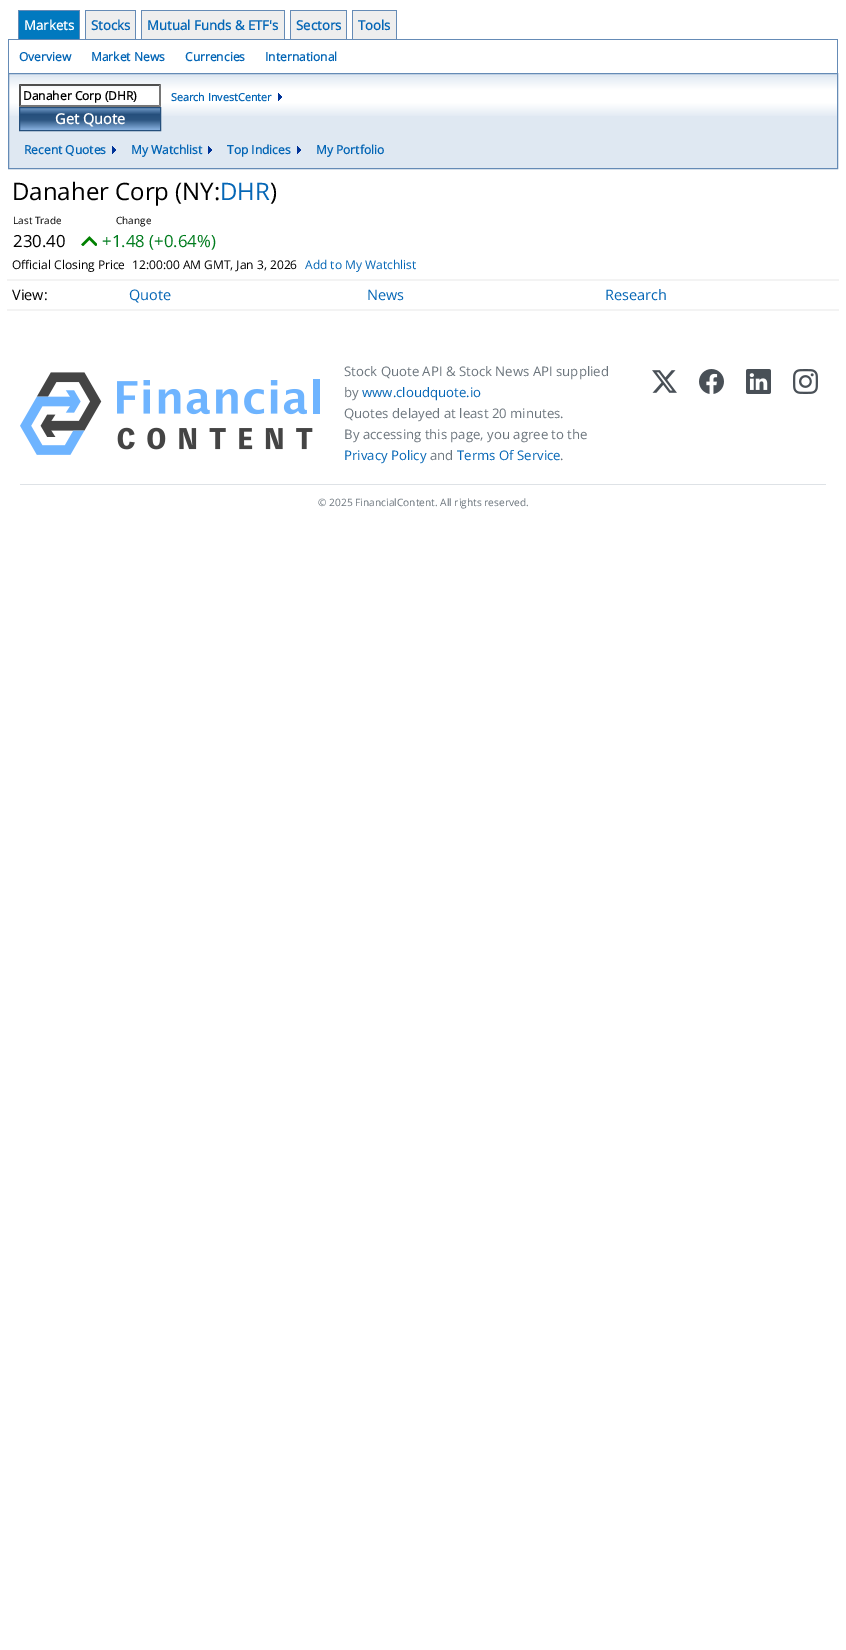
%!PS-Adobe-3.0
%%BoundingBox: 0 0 846 1650
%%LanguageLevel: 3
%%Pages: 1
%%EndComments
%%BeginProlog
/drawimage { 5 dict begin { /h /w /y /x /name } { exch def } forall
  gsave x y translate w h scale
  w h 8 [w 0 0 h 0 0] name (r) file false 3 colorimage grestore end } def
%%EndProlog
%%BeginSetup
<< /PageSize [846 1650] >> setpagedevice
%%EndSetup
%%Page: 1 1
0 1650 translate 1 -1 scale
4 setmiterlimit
1 setgray
0 0 846 1650 rectfill
0.396 0.545 0.714 setrgbcolor
18 10 62 1 rectfill
79 10 1 29 rectfill
18 10 1 29 rectfill
0.004 0.475 0.749 setrgbcolor
19 11 60 28 rectfill
0.933 setgray
86 11 49 28 rectfill
0.396 0.545 0.714 setrgbcolor
85 10 51 1 rectfill
135 10 1 29 rectfill
85 10 1 29 rectfill
0.933 setgray
142 11 142 28 rectfill
0.396 0.545 0.714 setrgbcolor
141 10 144 1 rectfill
284 10 1 29 rectfill
141 10 1 29 rectfill
0.933 setgray
291 11 55 28 rectfill
0.396 0.545 0.714 setrgbcolor
290 10 57 1 rectfill
346 10 1 29 rectfill
290 10 1 29 rectfill
0.933 setgray
353 11 43 28 rectfill
0.396 0.545 0.714 setrgbcolor
352 10 45 1 rectfill
396 10 1 29 rectfill
352 10 1 29 rectfill
8 39 830 1 rectfill
837 39 1 34 rectfill
8 39 1 34 rectfill
0.875 0.91 0.949 setrgbcolor
9 74 828 94 rectfill
(images/1.raw) 9 77 828 39 drawimage
0.396 0.545 0.714 setrgbcolor
8.5 73.5 829 95 rectstroke
0.31 setgray
newpath 19 84 moveto 161 84 lineto 159 86 lineto 21 86 lineto closepath fill
0.463 setgray
newpath 161 84 moveto 161 107 lineto 159 105 lineto 159 86 lineto closepath fill
newpath 161 107 moveto 19 107 lineto 21 105 lineto 159 105 lineto closepath fill
0.31 setgray
newpath 19 107 moveto 19 84 lineto 21 86 lineto 21 105 lineto closepath fill
(images/2.raw) 20 108 140 22 drawimage
0.145 0.31 0.486 setrgbcolor
19.5 107.5 141 23 rectstroke
(images/3.raw) 278 93 4 8 drawimage
(images/4.raw) 112 146 4 8 drawimage
(images/4.raw) 208 146 4 8 drawimage
(images/4.raw) 297 146 4 8 drawimage
(images/5.raw) 81 236 16 10 drawimage
0.953 setgray
7 279 832 2 rectfill
7 309 832 2 rectfill
(images/6.raw) 20 372 300 83 drawimage
(images/7.raw) 652 370 25 23 drawimage
(images/8.raw) 699 369 25 25 drawimage
(images/9.raw) 746 369 25 25 drawimage
(images/10.raw) 793 369 25 25 drawimage
0.871 0.886 0.902 setrgbcolor
20 484 806 1 rectfill
/OpenSans-Bold [13.2 0 0 -13.2 0 0] selectfont
1 setgray
24 30 moveto (Markets) show
0.016 0.4 0.714 setrgbcolor
91 30 moveto (Stocks) show
147 30 moveto (Mutual Funds & ETF's) show
296 30 moveto (Sectors) show
358 30 moveto (Tools) show
/OpenSans-Bold [12 0 0 -12 0 0] selectfont
19 61 moveto (Overview) show
91 61 moveto (Market News) show
185 61 moveto (Currencies) show
265 61 moveto (International) show
0 setgray
23 100 moveto (Danaher Corp \(DHR\)) show
/OpenSans-Bold [14.5 0 0 -14.5 0 0] selectfont
1 setgray
55 124 moveto (Get Quote) show
/OpenSans-Bold [10.75 0 0 -10.75 0 0] selectfont
0.016 0.4 0.714 setrgbcolor
171 101 moveto (Search InvestCenter) show
/OpenSans-Bold [12 0 0 -12 0 0] selectfont
24 154 moveto (Recent Quotes) show
131 154 moveto (My Watchlist) show
227 154 moveto (Top Indices) show
316 154 moveto (My Portfolio) show
/OpenSans-Regular [24 0 0 -24 0 0] selectfont
0 setgray
12 200 moveto (Danaher Corp \(NY:) show
0.016 0.4 0.714 setrgbcolor
220 200 moveto (DHR) show
0 setgray
270 200 moveto (\)) show
/OpenSans-Regular [10 0 0 -10 0 0] selectfont
13 224 moveto (Last Trade) show
/OpenSans-Regular [16.75 0 0 -16.75 0 0] selectfont
13 247 moveto (230.40) show
/OpenSans-Regular [10 0 0 -10 0 0] selectfont
116 224 moveto (Change) show
/OpenSans-Regular [16.75 0 0 -16.75 0 0] selectfont
0 0.486 0.114 setrgbcolor
102 247 moveto (+1.48 \(+0.64%\)) show
/OpenSans-Regular [12 0 0 -12 0 0] selectfont
0 setgray
12 269 moveto (Official Closing Price) show
132 269 moveto (12:00:00 AM GMT, Jan 3, 2026) show
0.016 0.4 0.714 setrgbcolor
305 269 moveto (Add to My Watchlist) show
/OpenSans-Regular [14.5 0 0 -14.5 0 0] selectfont
0 setgray
12 300 moveto (View:) show
0.016 0.4 0.714 setrgbcolor
129 300 moveto (Quote) show
367 300 moveto (News) show
605 300 moveto (Research) show
/OpenSans-Regular [13.2 0 0 -13.2 0 0] selectfont
0.424 0.459 0.49 setrgbcolor
344 376 moveto (Stock Quote API & Stock News API supplied) show
344 397 moveto (by) show
0.016 0.4 0.714 setrgbcolor
362 397 moveto (www.cloudquote.io) show
0.424 0.459 0.49 setrgbcolor
344 418 moveto (Quotes delayed at least 20 minutes.) show
344 439 moveto (By accessing this page, you agree to the) show
0.016 0.4 0.714 setrgbcolor
344 460 moveto (Privacy Policy) show
0.424 0.459 0.49 setrgbcolor
430 460 moveto (and) show
0.016 0.4 0.714 setrgbcolor
457 460 moveto (Terms Of Service) show
0.424 0.459 0.49 setrgbcolor
560 460 moveto (.) show
/OpenSans-Regular [10.2 0 0 -10.2 0 0] selectfont
318 506 moveto (© 2025 FinancialContent. All rights reserved.) show
showpage
%%EOF
